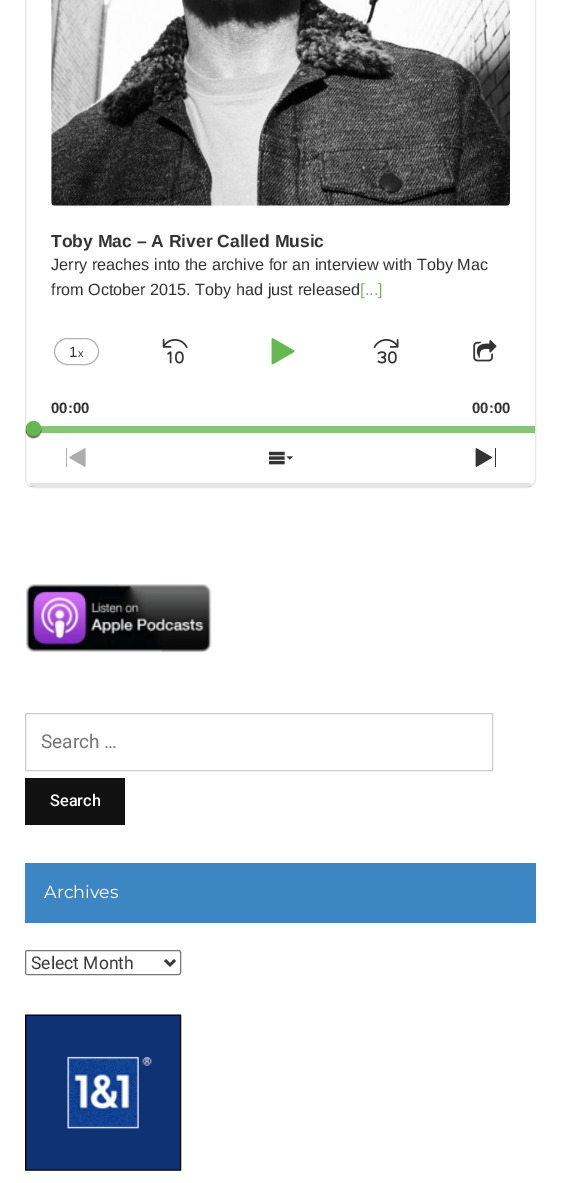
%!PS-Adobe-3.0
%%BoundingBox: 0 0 561 1183
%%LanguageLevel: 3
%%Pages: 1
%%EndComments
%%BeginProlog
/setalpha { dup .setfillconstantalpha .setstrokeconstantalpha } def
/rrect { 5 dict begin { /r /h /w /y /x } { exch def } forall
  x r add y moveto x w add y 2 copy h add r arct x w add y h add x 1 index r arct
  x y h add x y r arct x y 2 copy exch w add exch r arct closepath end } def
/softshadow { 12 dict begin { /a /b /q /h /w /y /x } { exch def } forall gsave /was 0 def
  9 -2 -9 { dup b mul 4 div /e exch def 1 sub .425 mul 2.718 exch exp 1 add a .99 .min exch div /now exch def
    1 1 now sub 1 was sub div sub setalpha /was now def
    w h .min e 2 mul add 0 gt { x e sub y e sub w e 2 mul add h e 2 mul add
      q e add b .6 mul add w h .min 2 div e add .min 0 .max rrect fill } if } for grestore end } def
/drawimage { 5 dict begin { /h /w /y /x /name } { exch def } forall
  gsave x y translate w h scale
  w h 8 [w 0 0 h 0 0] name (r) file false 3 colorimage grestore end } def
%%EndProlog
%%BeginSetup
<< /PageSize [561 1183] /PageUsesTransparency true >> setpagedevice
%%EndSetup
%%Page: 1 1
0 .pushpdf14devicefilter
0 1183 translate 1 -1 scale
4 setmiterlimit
1 setgray
0 0 561 1183 rectfill
0.902 setgray
25.5 -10.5 510 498 9.5 rrect stroke
0.1 setalpha
0 setgray
30 483 501 4 rectfill
1 setalpha
(images/1.raw) 51 0 459 206 drawimage
0.702 setgray
54.5 338.5 44 26 13 rrect stroke
(images/2.raw) 162 339 26 25 drawimage
(images/3.raw) 271 338 24 27 drawimage
(images/4.raw) 373 339 26 25 drawimage
(images/5.raw) 473 340 24 22 drawimage
0.396 0.722 0.31 setrgbcolor
26 426 509 7 rectfill
0.518 0.776 0.447 setrgbcolor
26 426 509 7 2.5 rrect fill
0 setgray
26 423 15 15 7.5 0.5 0.6 softshadow
0.396 0.722 0.31 setrgbcolor
newpath 33.5 428.5 7.5 0 360 arc closepath fill
(images/6.raw) 66 448 20 19 drawimage
(images/7.raw) 269 451 25 14 drawimage
(images/8.raw) 475 448 21 19 drawimage
(images/9.raw) 26 584 186 69 drawimage
0.8 setgray
25.5 713.5 467 57 rectstroke
0.067 setgray
25 778 100 47 rectfill
0.235 0.525 0.765 setrgbcolor
25 863 511 60 rectfill
0.463 setgray
25.5 950.5 155 24 2 rrect stroke
0.224 setgray
2.5 setlinewidth
newpath 165 960 moveto 170 965 lineto 175 960 lineto stroke
(images/10.raw) 25 1014 157 157 drawimage
/LiberationSans-Bold [17.5 0 0 -17.5 0 0] selectfont
0.2 setgray
51 247 moveto (Toby Mac – A River Called Music) show
/LiberationSans-Regular [16.25 0 0 -16.25 0 0] selectfont
51 270 moveto (Jerry reaches into the archive for an interview with Toby Mac) show
51 295 moveto (from October 2015. Toby had just released) show
0.396 0.722 0.31 setrgbcolor
360 295 moveto ([...]) show
/LiberationSans-Regular [15 0 0 -15 0 0] selectfont
0.2 setgray
69 357 moveto (1) show
/LiberationSans-Regular [11 0 0 -11 0 0] selectfont
78 357 moveto (x) show
/LiberationSans-Bold [15 0 0 -15 0 0] selectfont
51 413 moveto (00:00) show
472 413 moveto (00:00) show
/Roboto-Regular [19 0 0 -19 0 0] selectfont
0.459 setgray
41 748 moveto (Search …) show
/Roboto-Medium [16.25 0 0 -16.25 0 0] selectfont
1 setgray
50 806 moveto (Search) show
/Montserrat-Regular [17.5 0 0 -17.5 0 0] selectfont
44 898 moveto (Archives) show
/Roboto-Regular [17.5 0 0 -17.5 0 0] selectfont
0.224 setgray
31 969 moveto (Select Month) show
.poppdf14devicefilter showpage
%%EOF
